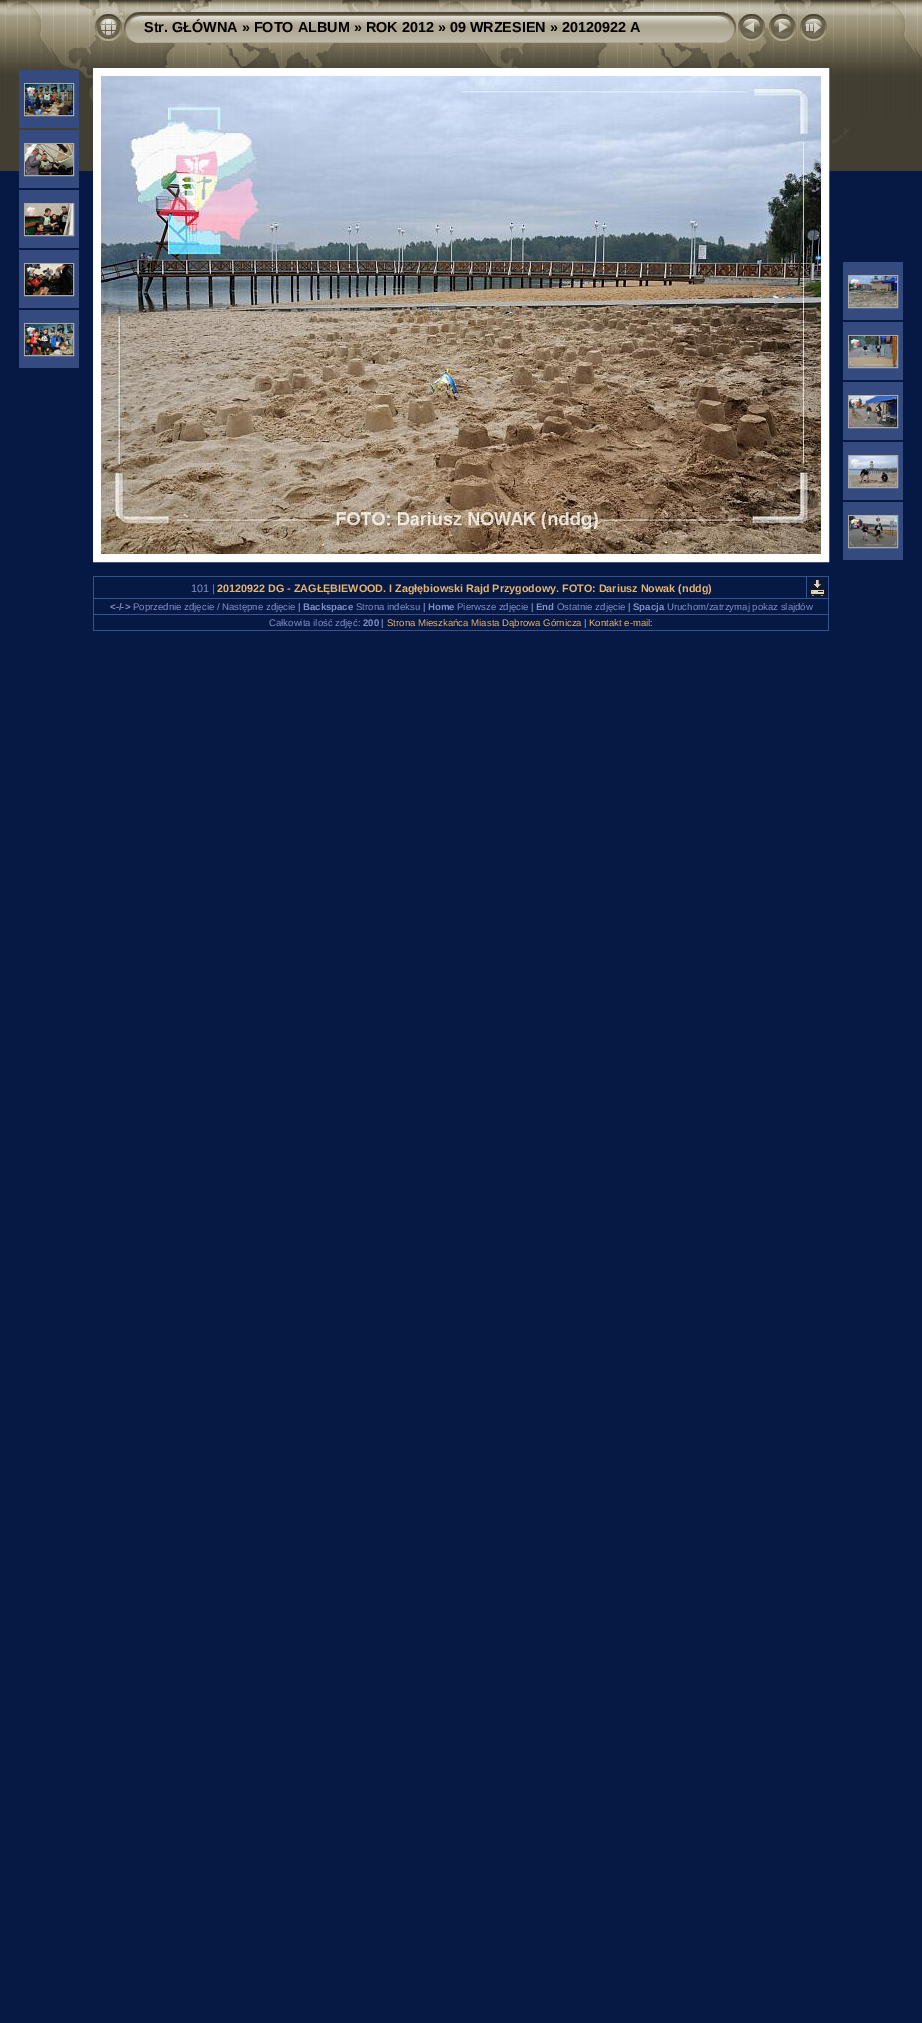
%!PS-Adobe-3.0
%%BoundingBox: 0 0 922 2023
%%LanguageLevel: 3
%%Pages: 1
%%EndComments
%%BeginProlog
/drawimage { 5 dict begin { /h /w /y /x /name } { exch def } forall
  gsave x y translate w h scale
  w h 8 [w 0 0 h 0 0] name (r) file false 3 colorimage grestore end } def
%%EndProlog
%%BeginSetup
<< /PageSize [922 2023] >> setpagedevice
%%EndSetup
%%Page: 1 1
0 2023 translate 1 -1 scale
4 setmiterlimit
0.024 0.094 0.267 setrgbcolor
0 0 922 2023 rectfill
(images/1.raw) 0 0 922 171 drawimage
(images/2.raw) 95 14 27 27 drawimage
(images/3.raw) 124 12 20 31 drawimage
(images/4.raw) 144 12 572 31 drawimage
(images/5.raw) 716 12 20 31 drawimage
(images/6.raw) 738 14 27 27 drawimage
(images/7.raw) 769 14 27 27 drawimage
(images/8.raw) 800 14 27 27 drawimage
0.208 0.294 0.498 setrgbcolor
19 70 60 58 rectfill
0.667 setgray
24.5 83.5 49 32 rectstroke
(images/9.raw) 25 84 48 31 drawimage
0.208 0.294 0.498 setrgbcolor
19 130 60 58 rectfill
0.667 setgray
24.5 143.5 49 32 rectstroke
(images/10.raw) 25 144 48 31 drawimage
0.208 0.294 0.498 setrgbcolor
19 190 60 58 rectfill
0.667 setgray
24.5 203.5 49 32 rectstroke
(images/11.raw) 25 204 48 31 drawimage
0.208 0.294 0.498 setrgbcolor
19 250 60 58 rectfill
0.667 setgray
24.5 263.5 49 32 rectstroke
(images/12.raw) 25 264 48 31 drawimage
0.208 0.294 0.498 setrgbcolor
19 310 60 58 rectfill
0.667 setgray
24.5 323.5 49 32 rectstroke
(images/13.raw) 25 324 48 31 drawimage
1 setgray
8 setlinewidth
97 72 728 486 rectstroke
(images/14.raw) 101 76 720 478 drawimage
0.208 0.294 0.498 setrgbcolor
843 262 60 58 rectfill
0.667 setgray
1 setlinewidth
848.5 275.5 49 32 rectstroke
(images/15.raw) 849 276 48 31 drawimage
0.208 0.294 0.498 setrgbcolor
843 322 60 58 rectfill
0.667 setgray
848.5 335.5 49 32 rectstroke
(images/16.raw) 849 336 48 31 drawimage
0.208 0.294 0.498 setrgbcolor
843 382 60 58 rectfill
0.667 setgray
848.5 395.5 49 32 rectstroke
(images/17.raw) 849 396 48 31 drawimage
0.208 0.294 0.498 setrgbcolor
843 442 60 58 rectfill
0.667 setgray
848.5 455.5 49 32 rectstroke
(images/18.raw) 849 456 48 31 drawimage
0.208 0.294 0.498 setrgbcolor
843 502 60 58 rectfill
0.667 setgray
848.5 515.5 49 32 rectstroke
(images/19.raw) 849 516 48 31 drawimage
0.22 0.318 0.549 setrgbcolor
806 576 23 1 rectfill
93 598 736 1 rectfill
806 576 1 23 rectfill
93 576 714 1 rectfill
93 614 736 1 rectfill
828 614 1 17 rectfill
93 630 736 1 rectfill
93 614 1 17 rectfill
93 598 1 17 rectfill
93 576 1 23 rectfill
828 598 1 17 rectfill
828 576 1 23 rectfill
(images/20.raw) 810 579 15 17 drawimage
/LiberationSans-Bold [14.4 0 0 -14.4 0 0] selectfont
0 setgray
144 32 moveto (Str. GŁÓWNA » FOTO ALBUM » ROK 2012 » 09 WRZESIEN » 20120922 A) show
/LiberationSans-Regular [10.8 0 0 -10.8 0 0] selectfont
0.494 0.576 0.8 setrgbcolor
191 592 moveto (101 |) show
/LiberationSans-Bold [10.8 0 0 -10.8 0 0] selectfont
0.898 0.714 0.451 setrgbcolor
217 592 moveto (20120922 DG - ZAGŁĘBIEWOOD. I Zagłębiowski Rajd Przygodowy. FOTO: Dariusz Nowak \(nddg\)) show
/LiberationSans-Bold [9.6 0 0 -9.6 0 0] selectfont
0.494 0.576 0.8 setrgbcolor
110 610 moveto (<-/->) show
/LiberationSans-Regular [9.6 0 0 -9.6 0 0] selectfont
133 610 moveto (Poprzednie zdjęcie / Następne zdjęcie |) show
/LiberationSans-Bold [9.6 0 0 -9.6 0 0] selectfont
303 610 moveto (Backspace) show
/LiberationSans-Regular [9.6 0 0 -9.6 0 0] selectfont
356 610 moveto (Strona indeksu |) show
/LiberationSans-Bold [9.6 0 0 -9.6 0 0] selectfont
428 610 moveto (Home) show
/LiberationSans-Regular [9.6 0 0 -9.6 0 0] selectfont
457 610 moveto (Pierwsze zdjęcie |) show
/LiberationSans-Bold [9.6 0 0 -9.6 0 0] selectfont
536 610 moveto (End) show
/LiberationSans-Regular [9.6 0 0 -9.6 0 0] selectfont
557 610 moveto (Ostatnie zdjęcie |) show
/LiberationSans-Bold [9.6 0 0 -9.6 0 0] selectfont
633 610 moveto (Spacja) show
/LiberationSans-Regular [9.6 0 0 -9.6 0 0] selectfont
667 610 moveto (Uruchom/zatrzymaj pokaz slajdów) show
269 626 moveto (Całkowita ilość zdjęć:) show
/LiberationSans-Bold [9.6 0 0 -9.6 0 0] selectfont
363 626 moveto (200) show
/LiberationSans-Regular [9.6 0 0 -9.6 0 0] selectfont
381 626 moveto (|) show
0.898 0.714 0.451 setrgbcolor
387 626 moveto (Strona Mieszkańca Miasta Dąbrowa Górnicza) show
0.494 0.576 0.8 setrgbcolor
584 626 moveto (|) show
0.898 0.714 0.451 setrgbcolor
589 626 moveto (Kontakt e-mail:) show
showpage
%%EOF
